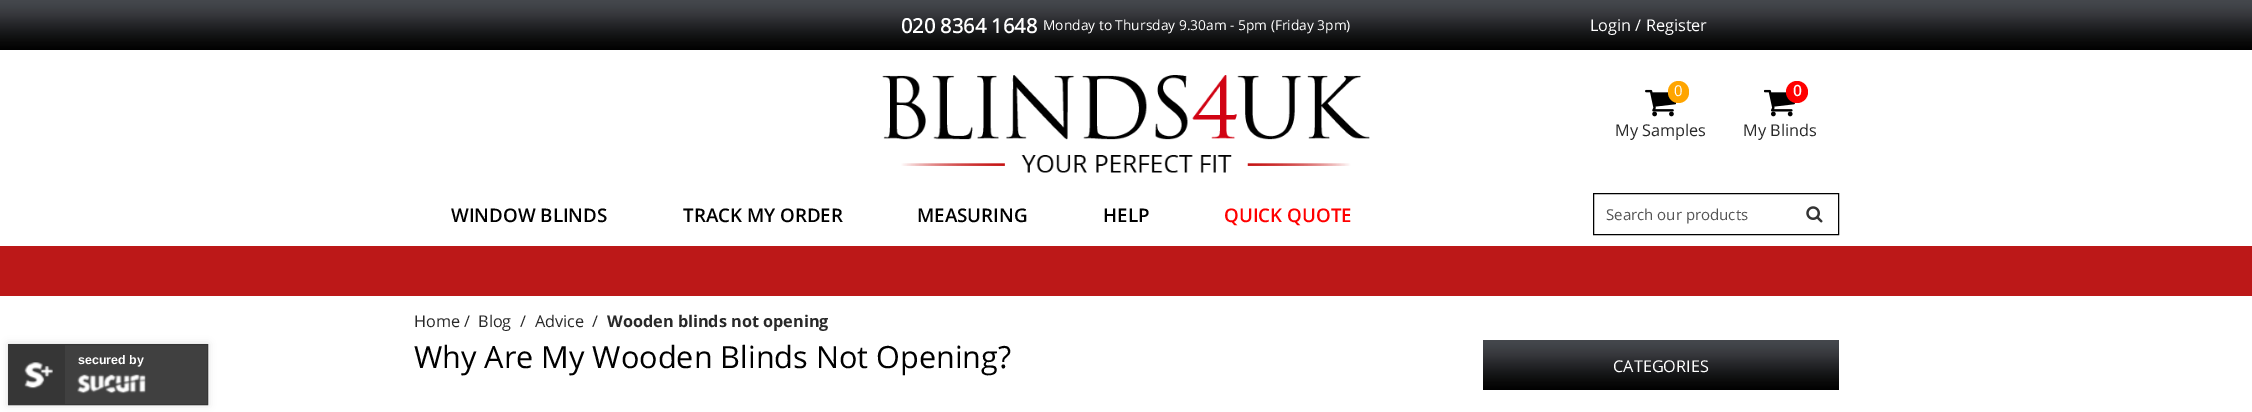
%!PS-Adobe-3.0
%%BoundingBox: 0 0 2252 412
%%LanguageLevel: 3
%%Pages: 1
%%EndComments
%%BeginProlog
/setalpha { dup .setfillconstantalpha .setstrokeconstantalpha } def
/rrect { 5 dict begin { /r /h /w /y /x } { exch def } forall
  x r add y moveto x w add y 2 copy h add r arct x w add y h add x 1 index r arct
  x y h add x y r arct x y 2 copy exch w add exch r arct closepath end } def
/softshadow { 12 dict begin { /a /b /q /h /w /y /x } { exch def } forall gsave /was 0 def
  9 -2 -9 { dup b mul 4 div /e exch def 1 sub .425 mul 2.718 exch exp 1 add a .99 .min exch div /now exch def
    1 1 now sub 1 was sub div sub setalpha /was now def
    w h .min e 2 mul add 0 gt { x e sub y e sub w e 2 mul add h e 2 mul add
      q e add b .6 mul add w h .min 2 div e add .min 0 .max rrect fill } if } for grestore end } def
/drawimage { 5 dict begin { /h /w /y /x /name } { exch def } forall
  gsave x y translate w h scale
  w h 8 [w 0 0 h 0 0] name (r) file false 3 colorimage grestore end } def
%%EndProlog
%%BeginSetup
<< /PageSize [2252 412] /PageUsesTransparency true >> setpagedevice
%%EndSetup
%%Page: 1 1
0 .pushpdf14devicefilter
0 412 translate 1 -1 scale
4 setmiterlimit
1 setgray
0 0 2252 412 rectfill
gsave newpath 0 0 moveto 2252 0 lineto 2252 50 lineto 0 50 lineto closepath clip newpath
<< /ShadingType 2 /ColorSpace /DeviceRGB /Coords [1126 0 1126 50] /Extend [true true] /Function << /FunctionType 3 /Domain [0 1] /Functions [<< /FunctionType 2 /Domain [0 1] /C0 [0.271 0.282 0.302] /C1 [0.251 0.263 0.282] /N 1 >> << /FunctionType 2 /Domain [0 1] /C0 [0.251 0.263 0.282] /C1 [0.208 0.212 0.227] /N 1 >> << /FunctionType 2 /Domain [0 1] /C0 [0.208 0.212 0.227] /C1 [0.11 0.114 0.122] /N 1 >> << /FunctionType 2 /Domain [0 1] /C0 [0.11 0.114 0.122] /C1 [0.035 0.035 0.035] /N 1 >> << /FunctionType 2 /Domain [0 1] /C0 [0.035 0.035 0.035] /C1 [0.004 0.004 0.004] /N 1 >>] /Bounds [0.13 0.31 0.59 0.85] /Encode [0 1 0 1 0 1 0 1 0 1] >> >> shfill grestore
0 setgray
8 344 200 61 0 4 0.14 softshadow
0.251 setgray
65 345 142 59 rectfill
0.212 setgray
8.5 344.5 199 60 rectstroke
9 345 56 59 rectfill
(images/1.raw) 24 362 29 27 drawimage
(images/2.raw) 77 374 69 20 drawimage
(images/3.raw) 882 75 488 98 drawimage
(images/4.raw) 1645 89 31 28 drawimage
1 0.647 0 setrgbcolor
1668 81 21 22 10.5 rrect fill
(images/5.raw) 1764 89 31 28 drawimage
1 0 0 setrgbcolor
newpath 1797 92 11 0 360 arc closepath fill
0 setgray
1593.5 193.5 245 41 rectstroke
(images/6.raw) 1806 206 17 17 drawimage
0.737 0.094 0.094 setrgbcolor
0 246 2252 50 rectfill
gsave newpath 1483 340 moveto 1839 340 lineto 1839 390 lineto 1483 390 lineto closepath clip newpath
<< /ShadingType 2 /ColorSpace /DeviceRGB /Coords [1661 340 1661 390] /Extend [true true] /Function << /FunctionType 3 /Domain [0 1] /Functions [<< /FunctionType 2 /Domain [0 1] /C0 [0.271 0.282 0.302] /C1 [0.251 0.263 0.282] /N 1 >> << /FunctionType 2 /Domain [0 1] /C0 [0.251 0.263 0.282] /C1 [0.208 0.212 0.227] /N 1 >> << /FunctionType 2 /Domain [0 1] /C0 [0.208 0.212 0.227] /C1 [0.11 0.114 0.122] /N 1 >> << /FunctionType 2 /Domain [0 1] /C0 [0.11 0.114 0.122] /C1 [0.035 0.035 0.035] /N 1 >> << /FunctionType 2 /Domain [0 1] /C0 [0.035 0.035 0.035] /C1 [0.004 0.004 0.004] /N 1 >>] /Bounds [0.13 0.31 0.59 0.85] /Encode [0 1 0 1 0 1 0 1 0 1] >> >> shfill grestore
/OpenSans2-Bold [20 0 0 -20 0 0] selectfont
1 setgray
901 33 moveto (020 8364 1648) show
/OpenSans2-Regular [13.75 0 0 -13.75 0 0] selectfont
1043 30 moveto (Monday to Thursday 9.30am - 5pm \(Friday 3pm\)) show
/OpenSans-Regular [16.25 0 0 -16.25 0 0] selectfont
1590 31 moveto (Login / Register) show
/LiberationSans-Bold [12.5 0 0 -12.5 0 0] selectfont
78 364 moveto (secured by) show
/OpenSans2-Regular [15 0 0 -15 0 0] selectfont
1674 96 moveto (0) show
/OpenSans2-Regular [16.25 0 0 -16.25 0 0] selectfont
0.161 setgray
1615 136 moveto (My Samples) show
/OpenSans2-Bold [15 0 0 -15 0 0] selectfont
1 setgray
1793 96 moveto (0) show
/OpenSans2-Regular [16.25 0 0 -16.25 0 0] selectfont
0.161 setgray
1743 136 moveto (My Blinds) show
/OpenSans-SemiBold [18.75 0 0 -18.75 0 0] selectfont
0 setgray
451 222 moveto (WINDOW BLINDS) show
683 222 moveto (TRACK MY ORDER) show
917 222 moveto (MEASURING) show
1103 222 moveto (HELP) show
1 0 0 setrgbcolor
1224 222 moveto (QUICK QUOTE) show
/OpenSans-Regular [15 0 0 -15 0 0] selectfont
0.333 setgray
1606 220 moveto (Search our products) show
/OpenSans-Regular [16.25 0 0 -16.25 0 0] selectfont
0.161 setgray
414 327 moveto (Home /) show
478 327 moveto (Blog) show
520 327 moveto (/) show
535 327 moveto (Advice) show
592 327 moveto (/) show
/OpenSans-Bold [16.25 0 0 -16.25 0 0] selectfont
607 327 moveto (Wooden blinds not opening) show
/OpenSans-Regular [30.6 0 0 -30.6 0 0] selectfont
0 setgray
414 368 moveto (Why Are My Wooden Blinds Not Opening?) show
/OpenSans-Regular [16.25 0 0 -16.25 0 0] selectfont
1 setgray
1613 372 moveto (CATEGORIES) show
.poppdf14devicefilter showpage
%%EOF
